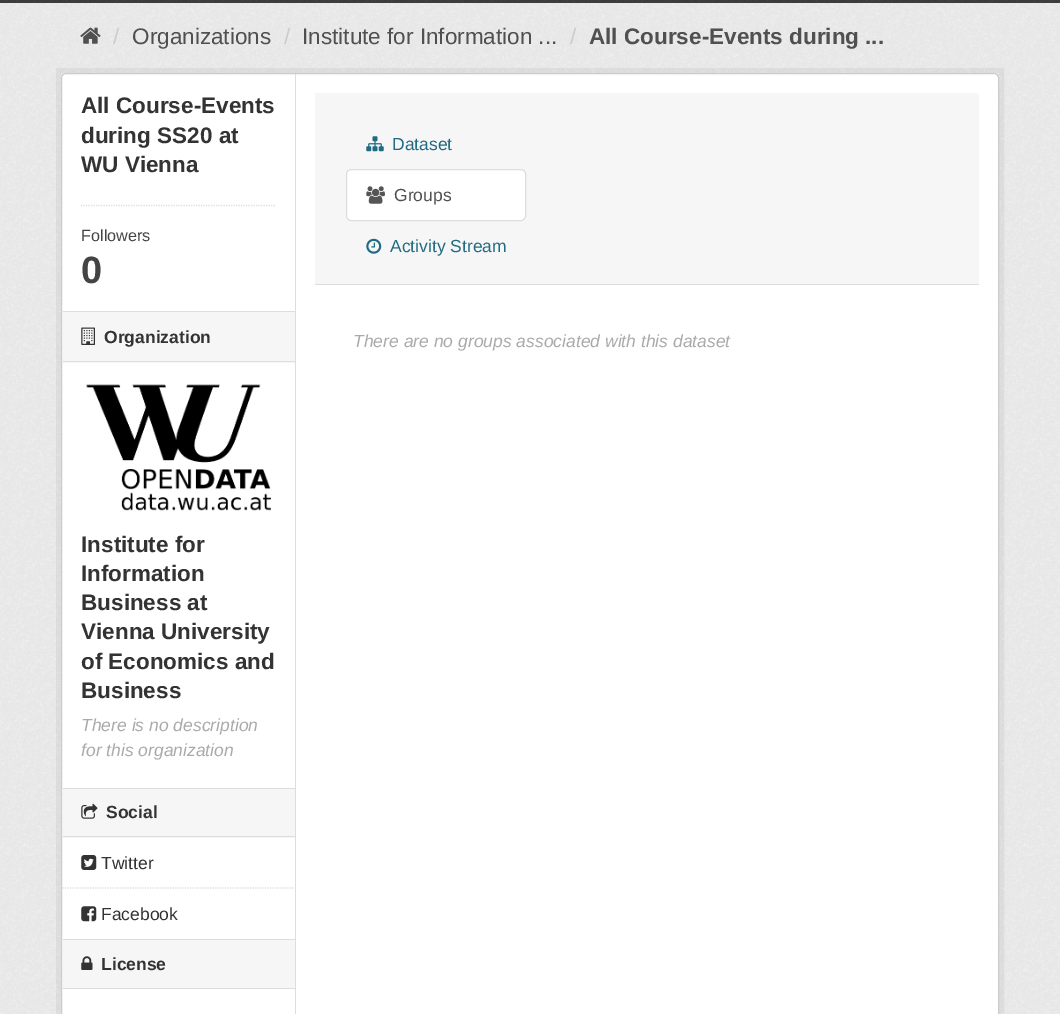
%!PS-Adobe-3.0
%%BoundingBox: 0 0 1060 1014
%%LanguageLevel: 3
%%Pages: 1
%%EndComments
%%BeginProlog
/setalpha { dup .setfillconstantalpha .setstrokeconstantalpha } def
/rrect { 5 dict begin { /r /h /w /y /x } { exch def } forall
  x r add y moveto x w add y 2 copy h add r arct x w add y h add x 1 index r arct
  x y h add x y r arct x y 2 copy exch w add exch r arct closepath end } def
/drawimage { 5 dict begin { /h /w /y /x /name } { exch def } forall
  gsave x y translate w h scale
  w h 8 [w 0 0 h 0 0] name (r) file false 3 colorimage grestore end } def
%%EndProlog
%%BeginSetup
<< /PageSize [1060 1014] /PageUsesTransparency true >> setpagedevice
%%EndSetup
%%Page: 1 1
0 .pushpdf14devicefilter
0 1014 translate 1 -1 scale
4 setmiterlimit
0.933 setgray
0 0 1060 1014 rectfill
0.239 setgray
0 0 1060 3 rectfill
(images/1.raw) 0 0 1041 2 drawimage
(images/2.raw) 0 3 1060 1011 drawimage
(images/3.raw) 80 27 21 17 drawimage
0.05 setalpha
0 setgray
5 setlinewidth
58.5 70.5 943 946 rectstroke
1 setalpha
1 setgray
61.5 73.5 937 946 4.5 rrect gsave fill grestore
0.8 setgray
1 setlinewidth
stroke
0.867 setgray
1.2 setlinewidth
[1.25 1.25] 0 setdash
newpath 81 205.5 moveto 276 205.5 lineto stroke
0.965 setgray
63 312 232 51 rectfill
0.867 setgray
63 311 232 1 rectfill
63 361 232 1 rectfill
(images/4.raw) 81 327 14 18 drawimage
(images/5.raw) 86 384 185 127 drawimage
0.965 setgray
63 789 232 49 rectfill
0.867 setgray
63 788 232 1 rectfill
63 836 232 1 rectfill
(images/6.raw) 81 803 17 16 drawimage
newpath 62.5 888 moveto 295 888 lineto stroke
(images/7.raw) 81 855 16 15 drawimage
(images/8.raw) 81 906 16 16 drawimage
0.965 setgray
63 940 232 48 rectfill
0.867 setgray
63 939 232 1 rectfill
63 988 232 1 rectfill
(images/9.raw) 81 956 12 14 drawimage
295 74 1 940 rectfill
0.965 setgray
newpath 315 93 moveto 975 93 lineto 977 93 979 95 979 97 curveto 979 285 lineto 315 285 lineto closepath fill
0.867 setgray
315 284 664 1 rectfill
(images/10.raw) 366 136 18 16 drawimage
1 setgray
346.5 169.5 179 51 4.5 rrect gsave fill grestore
0.867 setgray
1 setlinewidth
[] 0 setdash
stroke
(images/11.raw) 366 186 19 18 drawimage
(images/12.raw) 366 238 16 16 drawimage
/LiberationSans-Regular [22.5 0 0 -22.5 0 0] selectfont
0.8 setgray
113 44 moveto (/) show
0.314 setgray
132 44 moveto (Organizations) show
0.8 setgray
284 44 moveto (/) show
0.314 setgray
302 44 moveto (Institute for Information ...) show
0.8 setgray
570 44 moveto (/) show
/LiberationSans-Bold [22.5 0 0 -22.5 0 0] selectfont
0.314 setgray
589 44 moveto (All Course-Events during ...) show
0.2 setgray
81 113 moveto (All Course-Events) show
81 143 moveto (during SS20 at) show
81 172 moveto (WU Vienna) show
/LiberationSans-Regular [16.25 0 0 -16.25 0 0] selectfont
0.267 setgray
81 241 moveto (Followers) show
/LiberationSans-Bold [38 0 0 -38 0 0] selectfont
81 283 moveto (0) show
/LiberationSans-Bold [17.5 0 0 -17.5 0 0] selectfont
0.2 setgray
104 343 moveto (Organization) show
/LiberationSans-Bold [22.5 0 0 -22.5 0 0] selectfont
81 552 moveto (Institute for) show
81 581 moveto (Information) show
81 610 moveto (Business at) show
81 639 moveto (Vienna University) show
81 669 moveto (of Economics and) show
81 698 moveto (Business) show
/LiberationSans-Italic [17.5 0 0 -17.5 0 0] selectfont
0.667 setgray
81 731 moveto (There is no description) show
81 756 moveto (for this organization) show
/LiberationSans-Bold [17.5 0 0 -17.5 0 0] selectfont
0.2 setgray
106 818 moveto (Social) show
/LiberationSans-Regular [17.5 0 0 -17.5 0 0] selectfont
101 869 moveto (Twitter) show
101 920 moveto (Facebook) show
/LiberationSans-Bold [17.5 0 0 -17.5 0 0] selectfont
101 970 moveto (License) show
/LiberationSans-Regular [17.5 0 0 -17.5 0 0] selectfont
0.125 0.42 0.51 setrgbcolor
392 150 moveto (Dataset) show
0.314 setgray
394 201 moveto (Groups) show
0.125 0.42 0.51 setrgbcolor
390 252 moveto (Activity Stream) show
/LiberationSans-Italic [17.5 0 0 -17.5 0 0] selectfont
0.667 setgray
353 347 moveto (There are no groups associated with this dataset) show
.poppdf14devicefilter showpage
%%EOF
